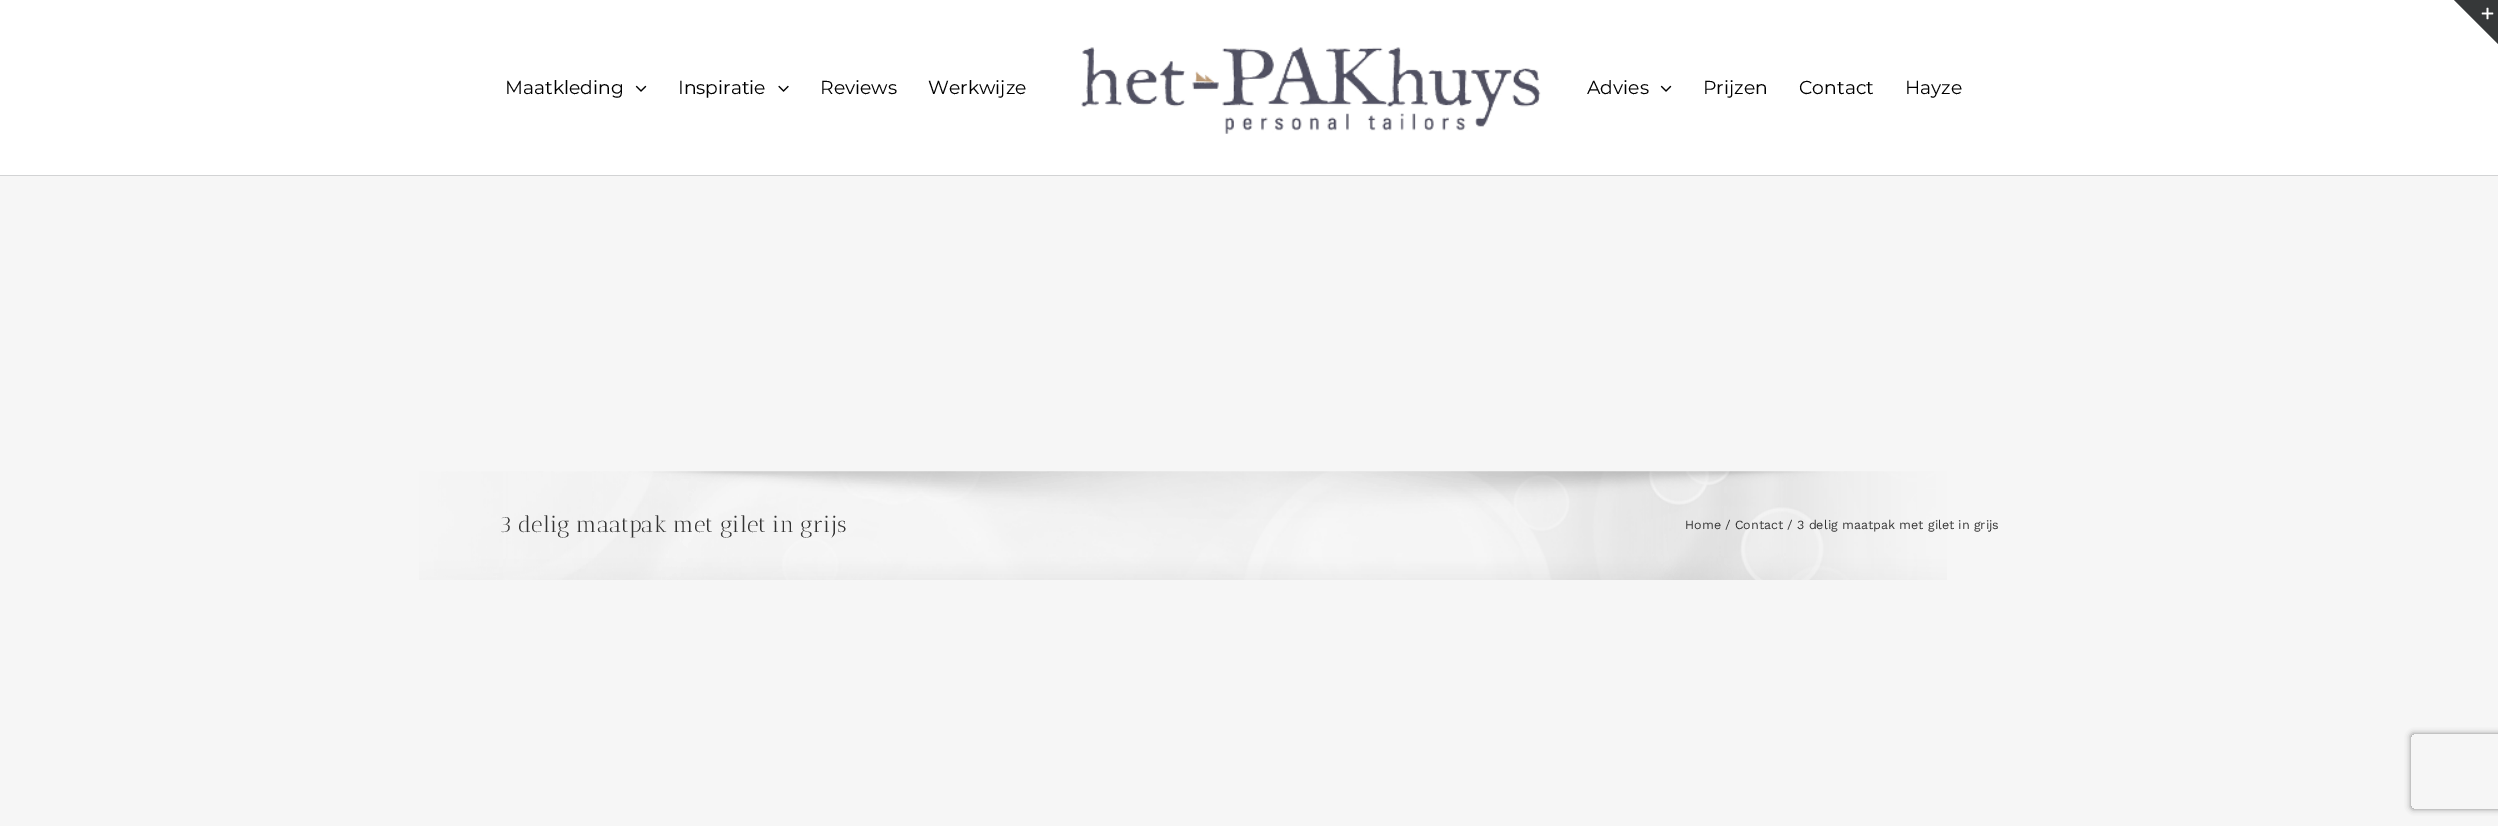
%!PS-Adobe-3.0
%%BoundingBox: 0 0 2498 826
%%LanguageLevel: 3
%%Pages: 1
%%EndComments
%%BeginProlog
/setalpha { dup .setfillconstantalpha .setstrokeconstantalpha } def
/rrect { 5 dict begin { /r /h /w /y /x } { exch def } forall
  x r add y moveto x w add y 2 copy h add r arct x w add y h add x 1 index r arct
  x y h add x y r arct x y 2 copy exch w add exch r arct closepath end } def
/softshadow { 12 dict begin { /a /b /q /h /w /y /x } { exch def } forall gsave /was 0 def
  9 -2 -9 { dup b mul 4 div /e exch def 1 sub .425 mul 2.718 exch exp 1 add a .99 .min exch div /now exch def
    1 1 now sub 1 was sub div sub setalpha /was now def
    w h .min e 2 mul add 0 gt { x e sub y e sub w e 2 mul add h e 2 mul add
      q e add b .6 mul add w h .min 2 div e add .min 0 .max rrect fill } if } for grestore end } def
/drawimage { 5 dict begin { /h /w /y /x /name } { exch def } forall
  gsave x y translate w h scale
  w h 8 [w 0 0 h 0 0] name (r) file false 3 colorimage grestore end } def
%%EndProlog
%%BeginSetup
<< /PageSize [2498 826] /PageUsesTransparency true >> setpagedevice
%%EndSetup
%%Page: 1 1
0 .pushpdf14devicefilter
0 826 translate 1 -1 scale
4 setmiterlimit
1 setgray
0 0 2498 826 rectfill
0.212 0.22 0.224 setrgbcolor
newpath 2454 0 moveto 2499 0 lineto 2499 45 lineto closepath fill
(images/1.raw) 2481 7 13 13 drawimage
(images/2.raw) 635 85 12 7 drawimage
(images/3.raw) 778 85 11 7 drawimage
(images/4.raw) 1081 47 460 87 drawimage
(images/2.raw) 1660 85 12 7 drawimage
0.965 setgray
0 176 2498 650 rectfill
(images/5.raw) 419 471 1528 109 drawimage
0.824 0.827 0.831 setrgbcolor
0 175 2498 1 rectfill
gsave
newpath 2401 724 moveto 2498 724 lineto 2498 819 lineto 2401 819 lineto closepath 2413.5 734 moveto 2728.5 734 lineto 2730 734 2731 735 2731 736.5 curveto 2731 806.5 lineto 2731 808 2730 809 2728.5 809 curveto 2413.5 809 lineto 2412 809 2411 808 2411 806.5 curveto 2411 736.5 lineto 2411 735 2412 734 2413.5 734 curveto closepath eoclip newpath
0.502 setgray
2411 734 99 75 2.5 3 1 softshadow
grestore
/Montserrat-Regular [18.75 0 0 -18.75 0 0] selectfont
0 setgray
505 94 moveto (Maatkleding) show
678 94 moveto (Inspiratie) show
820 94 moveto (Reviews) show
928 94 moveto (Werkwijze) show
1587 94 moveto (Advies) show
1703 94 moveto (Prijzen) show
1799 94 moveto (Contact) show
1905 94 moveto (Hayze) show
/AnticDidone-Regular [22.5 0 0 -22.5 0 0] selectfont
0.2 setgray
499 532 moveto (3 delig maatpak met gilet in grijs) show
/WorkSans-Regular [12.5 0 0 -12.5 0 0] selectfont
1685 529 moveto (Home / Contact / 3 delig maatpak met gilet in grijs) show
.poppdf14devicefilter showpage
%%EOF
